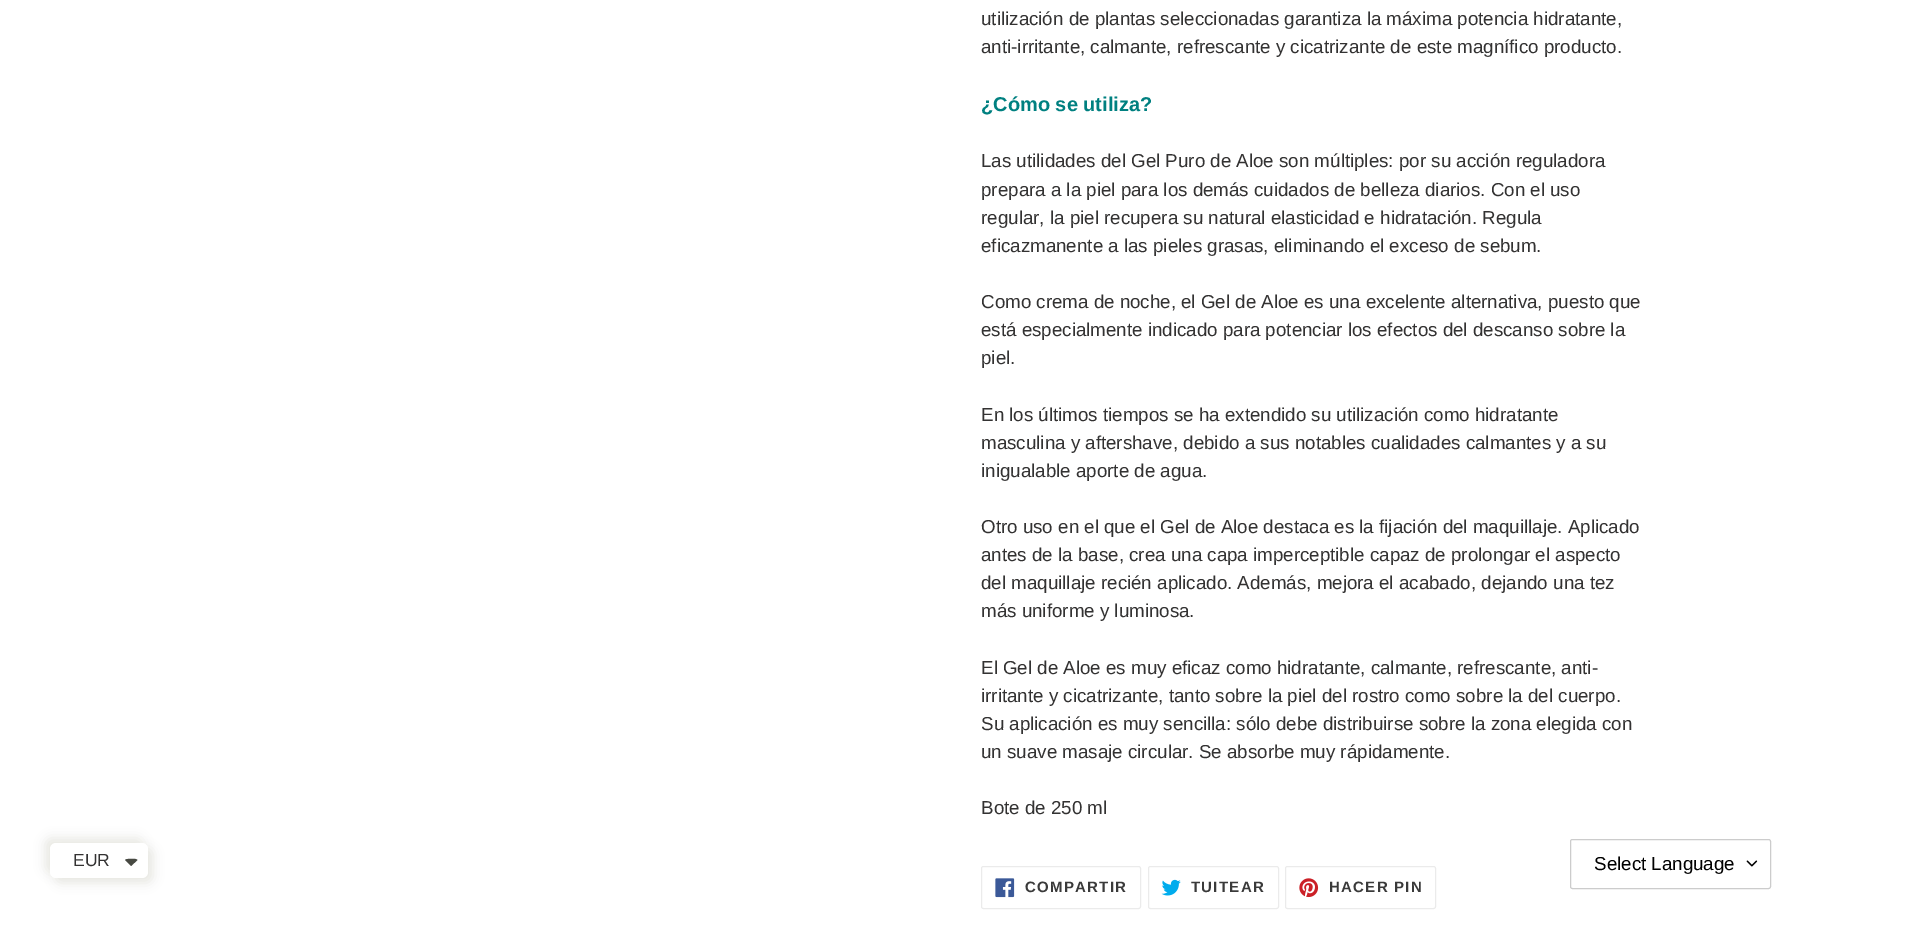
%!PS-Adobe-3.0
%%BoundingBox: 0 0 1924 935
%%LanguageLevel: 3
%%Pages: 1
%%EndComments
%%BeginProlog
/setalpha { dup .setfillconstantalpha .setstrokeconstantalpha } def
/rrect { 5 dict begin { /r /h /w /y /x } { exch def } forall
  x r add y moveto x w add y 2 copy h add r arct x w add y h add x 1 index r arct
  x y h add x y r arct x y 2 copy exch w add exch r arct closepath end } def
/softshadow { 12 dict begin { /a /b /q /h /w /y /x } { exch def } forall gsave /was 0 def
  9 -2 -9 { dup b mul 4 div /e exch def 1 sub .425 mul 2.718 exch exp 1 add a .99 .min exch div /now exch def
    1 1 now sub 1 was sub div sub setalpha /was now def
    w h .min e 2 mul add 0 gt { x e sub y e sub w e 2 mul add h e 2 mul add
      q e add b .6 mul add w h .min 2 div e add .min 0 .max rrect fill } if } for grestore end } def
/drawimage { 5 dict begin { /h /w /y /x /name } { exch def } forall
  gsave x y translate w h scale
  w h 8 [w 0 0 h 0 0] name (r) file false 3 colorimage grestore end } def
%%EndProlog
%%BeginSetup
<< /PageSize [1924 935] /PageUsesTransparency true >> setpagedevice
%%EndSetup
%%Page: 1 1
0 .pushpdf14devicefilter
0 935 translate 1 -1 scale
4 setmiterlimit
1 setgray
0 0 1924 935 rectfill
0.91 0.91 0.886 setrgbcolor
45 838 98 35 6 5.5 1 softshadow
55 848 98 35 6 5.5 1 softshadow
1 setgray
50 843 98 35 6 rrect fill
0.278 0.286 0.259 setrgbcolor
newpath 127.5 859 moveto 130 859 135.5 858 137.5 860 curveto 131 866 lineto 125 860 lineto 125.5 859.5 126.5 859 127.5 859 curveto closepath fill
0.922 setgray
981.5 866.5 159 42 2 rrect stroke
(images/1.raw) 995 878 20 20 drawimage
1148.5 866.5 130 42 2 rrect stroke
(images/2.raw) 1161 879 20 17 drawimage
1285.5 866.5 150 42 2 rrect stroke
(images/3.raw) 1299 878 20 20 drawimage
(images/4.raw) 1746 860 12 7 drawimage
0.8 setgray
1570.5 839.5 200 49 2 rrect stroke
/LiberationSans-Regular [17.5 0 0 -17.5 0 0] selectfont
0.2 0.196 0.196 setrgbcolor
73 866 moveto (EUR) show
/LiberationSans-Regular [18.75 0 0 -18.75 0 0] selectfont
981 25 moveto (utilización de plantas seleccionadas garantiza la máxima potencia hidratante,) show
981 53 moveto (anti-irritante, calmante, refrescante y cicatrizante de este magnífico producto.) show
/LiberationSans-Bold [20 0 0 -20 0 0] selectfont
0 0.502 0.502 setrgbcolor
981 111 moveto (¿Cómo se utiliza?) show
/LiberationSans-Regular [18.75 0 0 -18.75 0 0] selectfont
0.2 0.196 0.196 setrgbcolor
981 167 moveto (Las utilidades del Gel Puro de Aloe son múltiples: por su acción reguladora) show
981 196 moveto (prepara a la piel para los demás cuidados de belleza diarios. Con el uso) show
981 224 moveto (regular, la piel recupera su natural elasticidad e hidratación. Regula) show
981 252 moveto (eficazmanente a las pieles grasas, eliminando el exceso de sebum.) show
981 308 moveto (Como crema de noche, el Gel de Aloe es una excelente alternativa, puesto que) show
981 336 moveto (está especialmente indicado para potenciar los efectos del descanso sobre la) show
981 364 moveto (piel.) show
981 421 moveto (En los últimos tiempos se ha extendido su utilización como hidratante) show
981 449 moveto (masculina y aftershave, debido a sus notables cualidades calmantes y a su) show
981 477 moveto (inigualable aporte de agua.) show
981 533 moveto (Otro uso en el que el Gel de Aloe destaca es la fijación del maquillaje. Aplicado) show
981 561 moveto (antes de la base, crea una capa imperceptible capaz de prolongar el aspecto) show
981 589 moveto (del maquillaje recién aplicado. Además, mejora el acabado, dejando una tez) show
981 617 moveto (más uniforme y luminosa.) show
981 674 moveto (El Gel de Aloe es muy eficaz como hidratante, calmante, refrescante, anti-) show
981 702 moveto (irritante y cicatrizante, tanto sobre la piel del rostro como sobre la del cuerpo.) show
981 730 moveto (Su aplicación es muy sencilla: sólo debe distribuirse sobre la zona elegida con) show
981 758 moveto (un suave masaje circular. Se absorbe muy rápidamente.) show
981 814 moveto (Bote de 250 ml) show
/LiberationSans-Bold [15 0 0 -15 0 0] selectfont
0.227 setgray
1025 892 moveto 1.25 0 (COMPARTIR) ashow
1191 892 moveto 1.25 0 (TUITEAR) ashow
1329 892 moveto 1.25 0 (HACER PIN) ashow
/LiberationSans-Regular [18.75 0 0 -18.75 0 0] selectfont
0 setgray
1594 870 moveto (Select Language) show
.poppdf14devicefilter showpage
%%EOF
